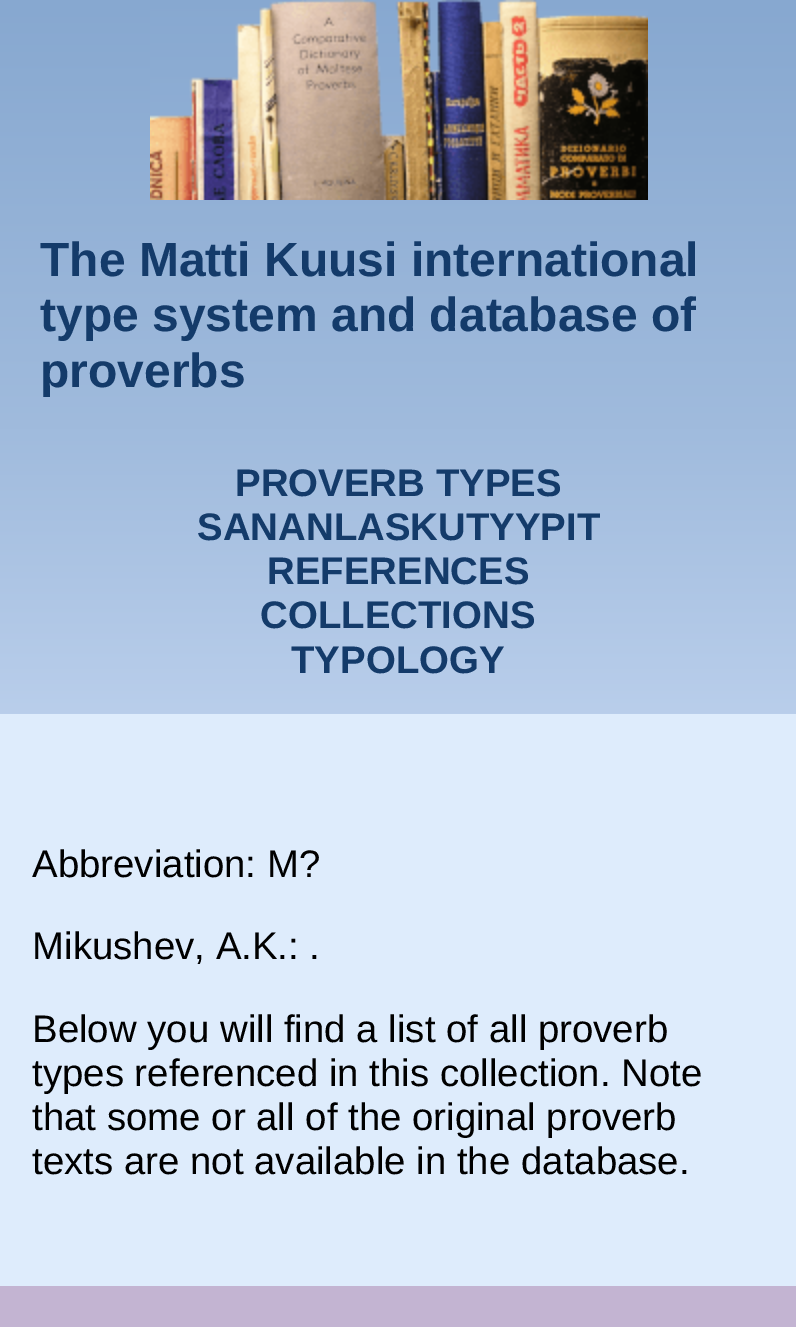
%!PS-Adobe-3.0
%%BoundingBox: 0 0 796 1327
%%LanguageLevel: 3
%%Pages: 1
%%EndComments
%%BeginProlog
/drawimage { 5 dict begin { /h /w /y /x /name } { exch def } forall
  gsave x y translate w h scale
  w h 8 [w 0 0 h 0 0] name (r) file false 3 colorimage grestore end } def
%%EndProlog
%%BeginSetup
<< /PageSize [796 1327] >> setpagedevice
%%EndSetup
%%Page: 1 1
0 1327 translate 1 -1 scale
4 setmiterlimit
1 setgray
0 0 796 1327 rectfill
gsave newpath 0 0 moveto 796 0 lineto 796 430 lineto 0 430 lineto closepath clip newpath
<< /ShadingType 2 /ColorSpace /DeviceRGB /Coords [398 0 398 430] /Extend [true true] /Function << /FunctionType 2 /Domain [0 1] /C0 [0.529 0.659 0.816] /C1 [0.627 0.733 0.867] /N 1 >> >> shfill grestore
(images/1.raw) 150 0 498 200 drawimage
gsave newpath 0 430 moveto 796 430 lineto 796 714 lineto 0 714 lineto closepath clip newpath
<< /ShadingType 2 /ColorSpace /DeviceRGB /Coords [398 430 398 714] /Extend [true true] /Function << /FunctionType 2 /Domain [0 1] /C0 [0.627 0.733 0.867] /C1 [0.725 0.808 0.922] /N 1 >> >> shfill grestore
0.871 0.925 0.988 setrgbcolor
0 714 796 572 rectfill
0.765 0.706 0.824 setrgbcolor
0 1286 796 41 rectfill
/LiberationSans-Bold [48 0 0 -48 0 0] selectfont
0.078 0.231 0.416 setrgbcolor
40 276 moveto (The Matti Kuusi international) show
40 331 moveto (type system and database of) show
40 387 moveto (proverbs) show
/LiberationSans-Bold [38.4 0 0 -38.4 0 0] selectfont
235 496 moveto (PROVERB TYPES) show
197 540 moveto (SANANLASKUTYYPIT) show
267 584 moveto (REFERENCES) show
260 628 moveto (COLLECTIONS) show
291 673 moveto (TYPOLOGY) show
/LiberationSans-Regular [38.4 0 0 -38.4 0 0] selectfont
0 setgray
32 877 moveto (Abbreviation: M?) show
32 959 moveto (Mikushev, A.K.: .) show
32 1042 moveto (Below you will find a list of all proverb) show
32 1086 moveto (types referenced in this collection. Note) show
32 1130 moveto (that some or all of the original proverb) show
32 1174 moveto (texts are not available in the database.) show
showpage
%%EOF
